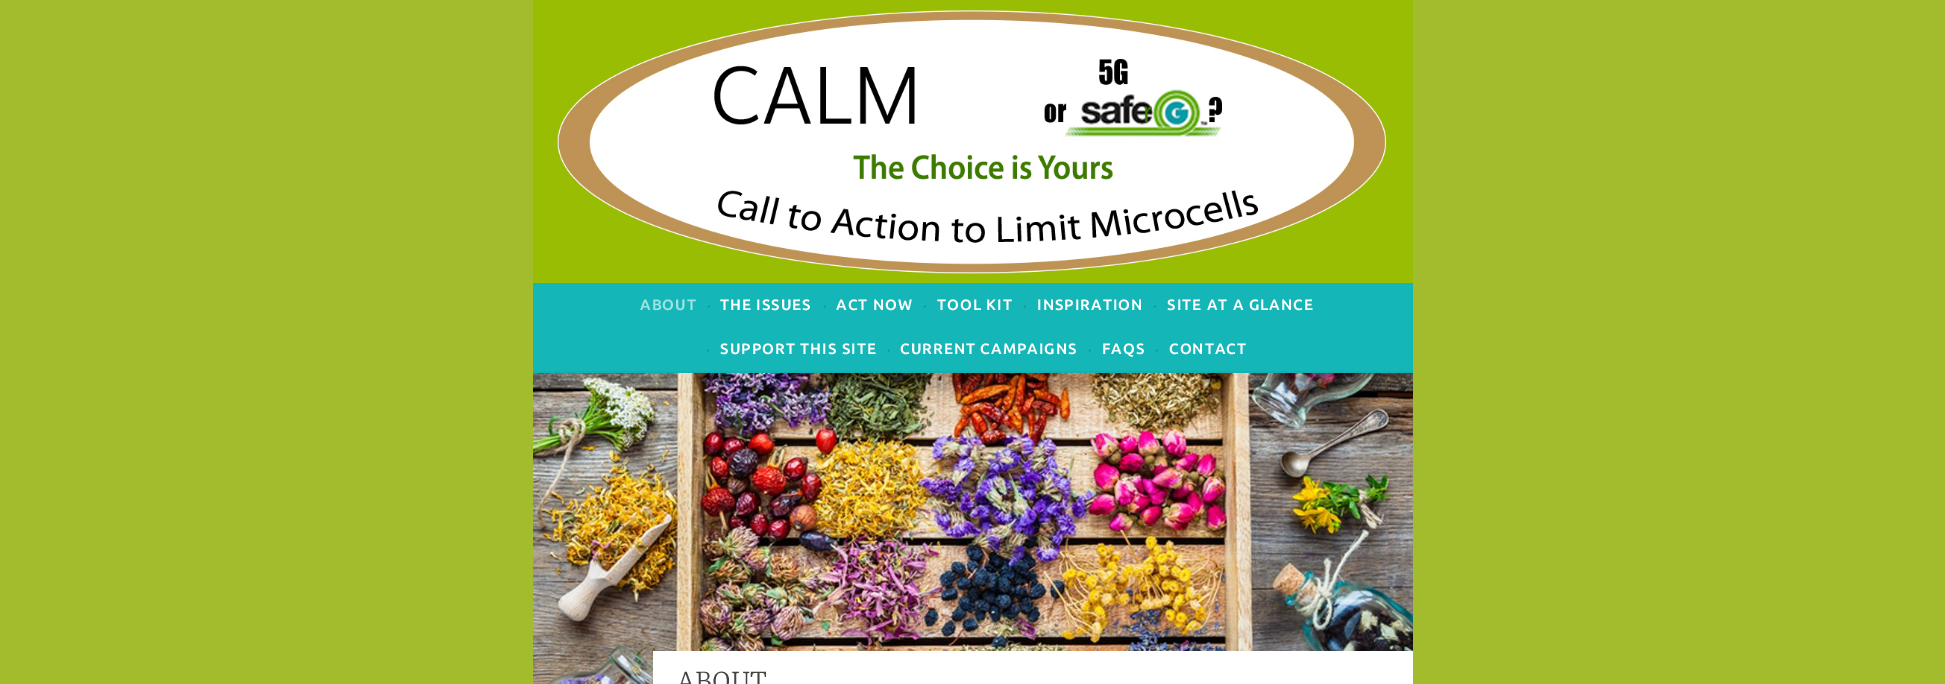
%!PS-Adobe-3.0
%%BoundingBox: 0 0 1945 684
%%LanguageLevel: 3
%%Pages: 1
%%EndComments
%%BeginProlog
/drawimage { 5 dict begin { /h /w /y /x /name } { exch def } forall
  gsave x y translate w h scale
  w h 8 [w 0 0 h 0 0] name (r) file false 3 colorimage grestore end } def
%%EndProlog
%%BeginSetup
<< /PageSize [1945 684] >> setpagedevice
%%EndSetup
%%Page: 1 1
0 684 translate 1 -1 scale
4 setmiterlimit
0.635 0.737 0.176 setrgbcolor
0 0 1945 684 rectfill
(images/1.raw) 533 0 880 283 drawimage
0.082 0.714 0.722 setrgbcolor
533 283 880 88 rectfill
0.078 0.694 0.698 setrgbcolor
533 371 880 2 rectfill
(images/2.raw) 533 373 880 311 drawimage
1 setgray
653 651 760 33 rectfill
/Ubuntu-Bold [15 0 0 -15 0 0] selectfont
0.631 0.886 0.89 setrgbcolor
640 310 moveto 1 0 (ABOUT) ashow
/Ubuntu-Light [10 0 0 -10 0 0] selectfont
0.071 0.608 0.612 setrgbcolor
707 310 moveto (•) show
/Ubuntu-Bold [15 0 0 -15 0 0] selectfont
1 setgray
720 310 moveto 1 0 (THE ISSUES) ashow
/Ubuntu-Light [10 0 0 -10 0 0] selectfont
0.071 0.608 0.612 setrgbcolor
823 310 moveto (•) show
/Ubuntu-Bold [15 0 0 -15 0 0] selectfont
1 setgray
836 310 moveto 1 0 (ACT NOW) ashow
/Ubuntu-Light [10 0 0 -10 0 0] selectfont
0.071 0.608 0.612 setrgbcolor
923 310 moveto (•) show
/Ubuntu-Bold [15 0 0 -15 0 0] selectfont
1 setgray
937 310 moveto 1 0 (TOOL KIT) ashow
/Ubuntu-Light [10 0 0 -10 0 0] selectfont
0.071 0.608 0.612 setrgbcolor
1023 310 moveto (•) show
/Ubuntu-Bold [15 0 0 -15 0 0] selectfont
1 setgray
1037 310 moveto 1 0 (INSPIRATION) ashow
/Ubuntu-Light [10 0 0 -10 0 0] selectfont
0.071 0.608 0.612 setrgbcolor
1153 310 moveto (•) show
/Ubuntu-Bold [15 0 0 -15 0 0] selectfont
1 setgray
1167 310 moveto 1 0 (SITE AT A GLANCE) ashow
/Ubuntu-Light [10 0 0 -10 0 0] selectfont
0.071 0.608 0.612 setrgbcolor
706 354 moveto (•) show
/Ubuntu-Bold [15 0 0 -15 0 0] selectfont
1 setgray
720 354 moveto 1 0 (SUPPORT THIS SITE) ashow
/Ubuntu-Light [10 0 0 -10 0 0] selectfont
0.071 0.608 0.612 setrgbcolor
887 354 moveto (•) show
/Ubuntu-Bold [15 0 0 -15 0 0] selectfont
1 setgray
900 354 moveto 1 0 (CURRENT CAMPAIGNS) ashow
/Ubuntu-Light [10 0 0 -10 0 0] selectfont
0.071 0.608 0.612 setrgbcolor
1088 354 moveto (•) show
/Ubuntu-Bold [15 0 0 -15 0 0] selectfont
1 setgray
1102 354 moveto 1 0 (FAQS) ashow
/Ubuntu-Light [10 0 0 -10 0 0] selectfont
0.071 0.608 0.612 setrgbcolor
1155 354 moveto (•) show
/Ubuntu-Bold [15 0 0 -15 0 0] selectfont
1 setgray
1169 354 moveto 1 0 (CONTACT) ashow
/Yrsa-Light [32 0 0 -32 0 0] selectfont
0.267 0.263 0.251 setrgbcolor
677 690 moveto (ABOUT) show
showpage
%%EOF
